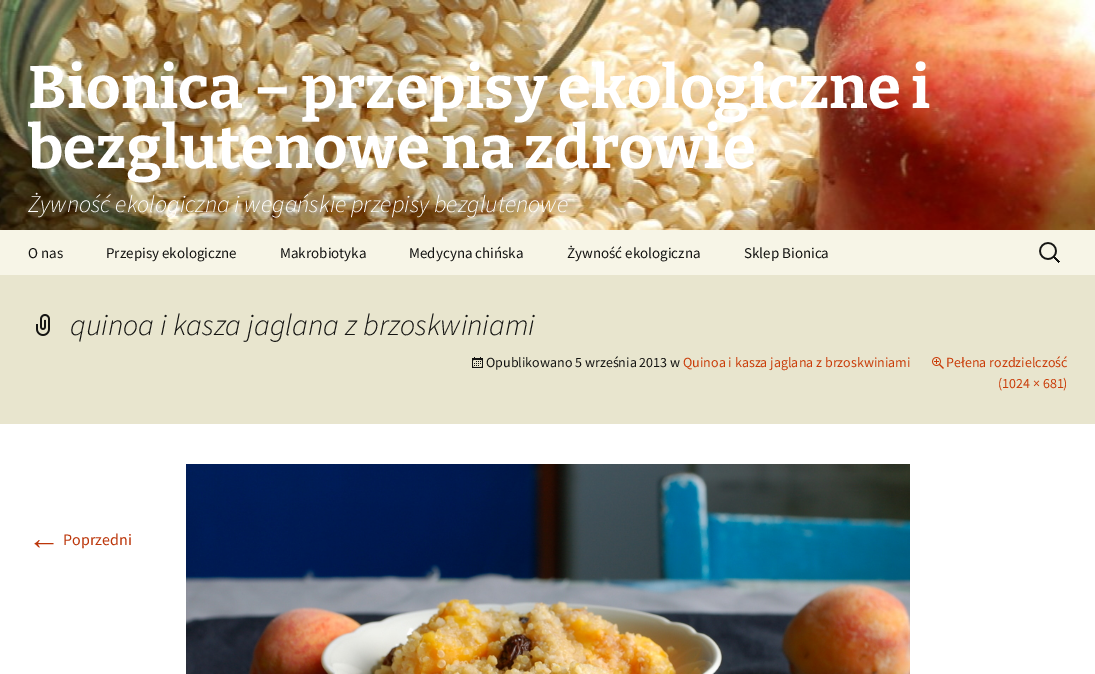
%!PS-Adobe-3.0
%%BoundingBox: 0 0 1095 674
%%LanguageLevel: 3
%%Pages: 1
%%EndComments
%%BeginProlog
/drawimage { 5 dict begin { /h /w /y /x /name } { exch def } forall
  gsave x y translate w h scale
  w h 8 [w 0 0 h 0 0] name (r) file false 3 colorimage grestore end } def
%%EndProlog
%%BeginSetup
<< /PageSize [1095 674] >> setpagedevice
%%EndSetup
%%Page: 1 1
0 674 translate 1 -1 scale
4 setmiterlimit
1 setgray
0 0 1095 674 rectfill
(images/1.raw) 0 0 1095 230 drawimage
0.969 0.961 0.906 setrgbcolor
0 230 1095 45 rectfill
(images/2.raw) 1039 242 21 21 drawimage
0.91 0.898 0.808 setrgbcolor
0 275 1095 149 rectfill
(images/3.raw) 36 314 14 22 drawimage
(images/4.raw) 472 357 11 11 drawimage
(images/5.raw) 932 357 12 12 drawimage
(images/6.raw) 186 464 724 210 drawimage
/Bitter-Bold [60 0 0 -60 0 0] selectfont
1 setgray
28 108 moveto (Bionica – przepisy ekologiczne i) show
28 168 moveto (bezglutenowe na zdrowie) show
/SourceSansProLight-LightItalic [24 0 0 -24 0 0] selectfont
28 212 moveto (Żywność ekologiczna i wegańskie przepisy bezglutenowe) show
/SourceSansPro-Regular [15 0 0 -15 0 0] selectfont
0.078 0.078 0.071 setrgbcolor
28 258 moveto (O nas) show
106 258 moveto (Przepisy ekologiczne) show
280 258 moveto (Makrobiotyka) show
409 258 moveto (Medycyna chińska) show
567 258 moveto (Żywność ekologiczna) show
744 258 moveto (Sklep Bionica) show
/SourceSansProLight-LightItalic [30 0 0 -30 0 0] selectfont
70 335 moveto (quinoa i kasza jaglana z brzoskwiniami) show
/SourceSansPro-Regular [14 0 0 -14 0 0] selectfont
486 367 moveto (Opublikowano 5 września 2013 w) show
0.792 0.235 0.031 setrgbcolor
683 367 moveto (Quinoa i kasza jaglana z brzoskwiniami) show
946 367 moveto (Pełena rozdzielczość) show
998 388 moveto (\(1024 × 681\)) show
/LiberationSans-Regular [32 0 0 -32 0 0] selectfont
0.737 0.212 0.039 setrgbcolor
28 549 moveto (←) show
/SourceSansPro-Regular [16 0 0 -16 0 0] selectfont
63 545 moveto (Poprzedni) show
showpage
%%EOF
